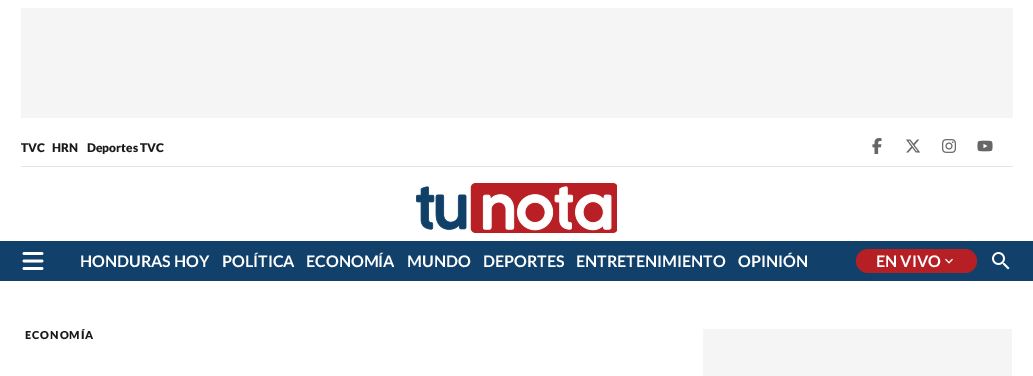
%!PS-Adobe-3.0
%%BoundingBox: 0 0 1033 376
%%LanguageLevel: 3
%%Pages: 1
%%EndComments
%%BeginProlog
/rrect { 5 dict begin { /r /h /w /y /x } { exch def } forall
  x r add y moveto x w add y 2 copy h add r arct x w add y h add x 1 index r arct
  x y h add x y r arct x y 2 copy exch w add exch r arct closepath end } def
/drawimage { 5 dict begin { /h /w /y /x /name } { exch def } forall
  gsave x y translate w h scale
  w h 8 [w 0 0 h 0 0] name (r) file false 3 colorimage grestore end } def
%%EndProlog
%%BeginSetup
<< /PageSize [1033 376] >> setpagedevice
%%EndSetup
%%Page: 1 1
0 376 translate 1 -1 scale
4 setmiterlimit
1 setgray
0 0 1033 376 rectfill
0.961 setgray
21 8 992 110 rectfill
(images/1.raw) 872 138 10 16 drawimage
(images/2.raw) 906 139 15 14 drawimage
(images/3.raw) 942 139 14 14 drawimage
(images/4.raw) 977 140 16 12 drawimage
0.898 setgray
21 166 992 1 rectfill
(images/5.raw) 416 183 201 50 drawimage
0.067 0.251 0.416 setrgbcolor
0 241 1033 40 rectfill
(images/6.raw) 22 252 22 18 drawimage
0.714 0.125 0.145 setrgbcolor
856 249 121 24 12 rrect fill
(images/7.raw) 945 258 8 6 drawimage
(images/8.raw) 992 252 18 18 drawimage
0.961 setgray
703 329 309 47 rectfill
/Lato-Black [12 0 0 -12 0 0] selectfont
0.102 setgray
21 152 moveto (TVC) show
52 152 moveto (HRN) show
87 152 moveto (Deportes TVC) show
/Lato-Bold [16 0 0 -16 0 0] selectfont
1 setgray
80 267 moveto (HONDURAS HOY) show
222 267 moveto (POLÍTICA) show
306 267 moveto (ECONOMÍA) show
407 267 moveto (MUNDO) show
483 267 moveto (DEPORTES) show
576 267 moveto (ENTRETENIMIENTO) show
738 267 moveto (OPINIÓN) show
876 267 moveto (EN VIVO) show
/Lato-Black [11 0 0 -11 0 0] selectfont
0.102 setgray
25 339 moveto 1 0 (ECONOMÍA) ashow
showpage
%%EOF
